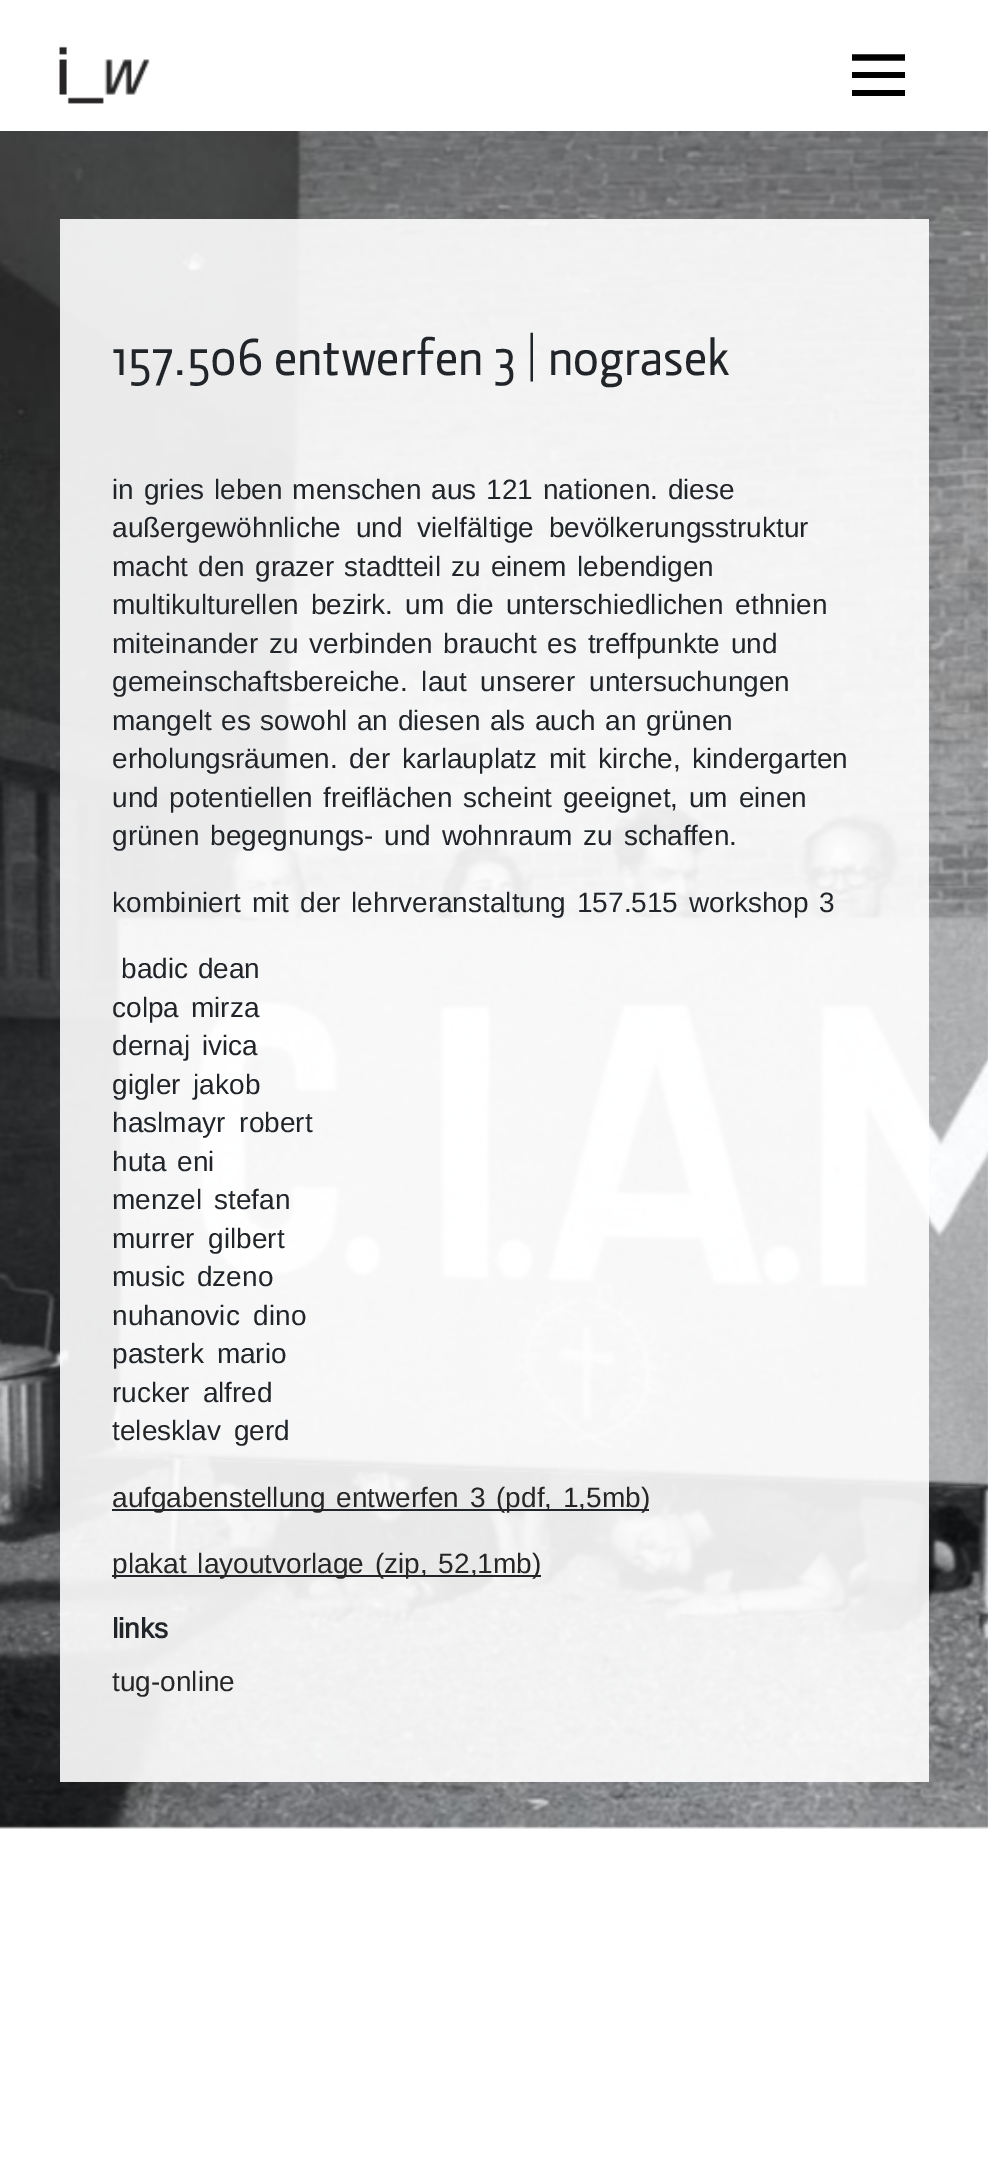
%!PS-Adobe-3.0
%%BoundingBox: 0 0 988 2168
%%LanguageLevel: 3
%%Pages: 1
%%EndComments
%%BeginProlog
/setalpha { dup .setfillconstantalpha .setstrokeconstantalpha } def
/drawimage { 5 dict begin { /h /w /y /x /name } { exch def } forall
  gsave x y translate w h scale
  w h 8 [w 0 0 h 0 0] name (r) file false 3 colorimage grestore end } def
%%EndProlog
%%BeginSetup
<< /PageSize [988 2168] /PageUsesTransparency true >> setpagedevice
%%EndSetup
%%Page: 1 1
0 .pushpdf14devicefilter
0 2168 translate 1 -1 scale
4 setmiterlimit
1 setgray
0 0 988 2168 rectfill
(images/1.raw) 59 46 91 58 drawimage
0 setgray
6.3 setlinewidth
newpath 852 57.5 moveto 905 57.5 lineto stroke
852 72 53 6 rectfill
852 90 53 6 rectfill
(images/2.raw) 0 131 988 1698 drawimage
0.9 setalpha
1 setgray
60 219 869 1563 rectfill
1 setalpha
0.129 0.145 0.161 setrgbcolor
112 1509 537 2 rectfill
112 1575 429 2 rectfill
/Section-Medium [52.5 0 0 -52.5 0 0] selectfont
112 375 moveto (157.506 entwerfen 3 | nograsek) show
/Arimo-Regular [28 0 0 -28 0 0] selectfont
112 499 moveto 2 0 32 (in gries leben menschen aus 121 nationen. diese) widthshow
112 537 moveto 7 0 32 (außergewöhnliche und vielfältige bevölkerungsstruktur) widthshow
112 576 moveto 2.25 0 32 (macht den grazer stadtteil zu einem lebendigen) widthshow
112 614 moveto 4.25 0 32 (multikulturellen bezirk. um die unterschiedlichen ethnien) widthshow
112 653 moveto 3 0 32 (miteinander zu verbinden braucht es treffpunkte und) widthshow
112 691 moveto 6 0 32 (gemeinschaftsbereiche. laut unserer untersuchungen) widthshow
112 730 moveto 1.75 0 32 (mangelt es sowohl an diesen als auch an grünen) widthshow
112 768 moveto 4 0 32 (erholungsräumen. der karlauplatz mit kirche, kindergarten) widthshow
112 807 moveto 3 0 32 (und potentiellen freiflächen scheint geeignet, um einen) widthshow
112 845 moveto 3 0 32 (grünen begegnungs- und wohnraum zu schaffen.) widthshow
112 912 moveto 3 0 32 (kombiniert mit der lehrveranstaltung 157.515 workshop 3) widthshow
121 978 moveto 2 0 32 (badic dean) widthshow
112 1017 moveto 4 0 32 (colpa mirza) widthshow
112 1055 moveto 4 0 32 (dernaj ivica) widthshow
112 1094 moveto 5 0 32 (gigler jakob) widthshow
112 1132 moveto 6 0 32 (haslmayr robert) widthshow
112 1171 moveto 3 0 32 (huta eni) widthshow
112 1209 moveto 4 0 32 (menzel stefan) widthshow
112 1248 moveto 6 0 32 (murrer gilbert) widthshow
112 1286 moveto 4 0 32 (music dzeno) widthshow
112 1325 moveto 6 0 32 (nuhanovic dino) widthshow
112 1363 moveto 5 0 32 (pasterk mario) widthshow
112 1402 moveto 5 0 32 (rucker alfred) widthshow
112 1440 moveto 5 0 32 (telesklav gerd) widthshow
0.153 0.145 0.145 setrgbcolor
112 1507 moveto 3 0 32 (aufgabenstellung entwerfen 3 \(pdf, 1,5mb\)) widthshow
112 1573 moveto 3 0 32 (plakat layoutvorlage \(zip, 52,1mb\)) widthshow
/Arimo-Bold [28 0 0 -28 0 0] selectfont
0.129 0.145 0.161 setrgbcolor
112 1638 moveto (links) show
/Arimo-Regular [28 0 0 -28 0 0] selectfont
0.153 0.145 0.145 setrgbcolor
112 1691 moveto (tug-online) show
.poppdf14devicefilter showpage
%%EOF
